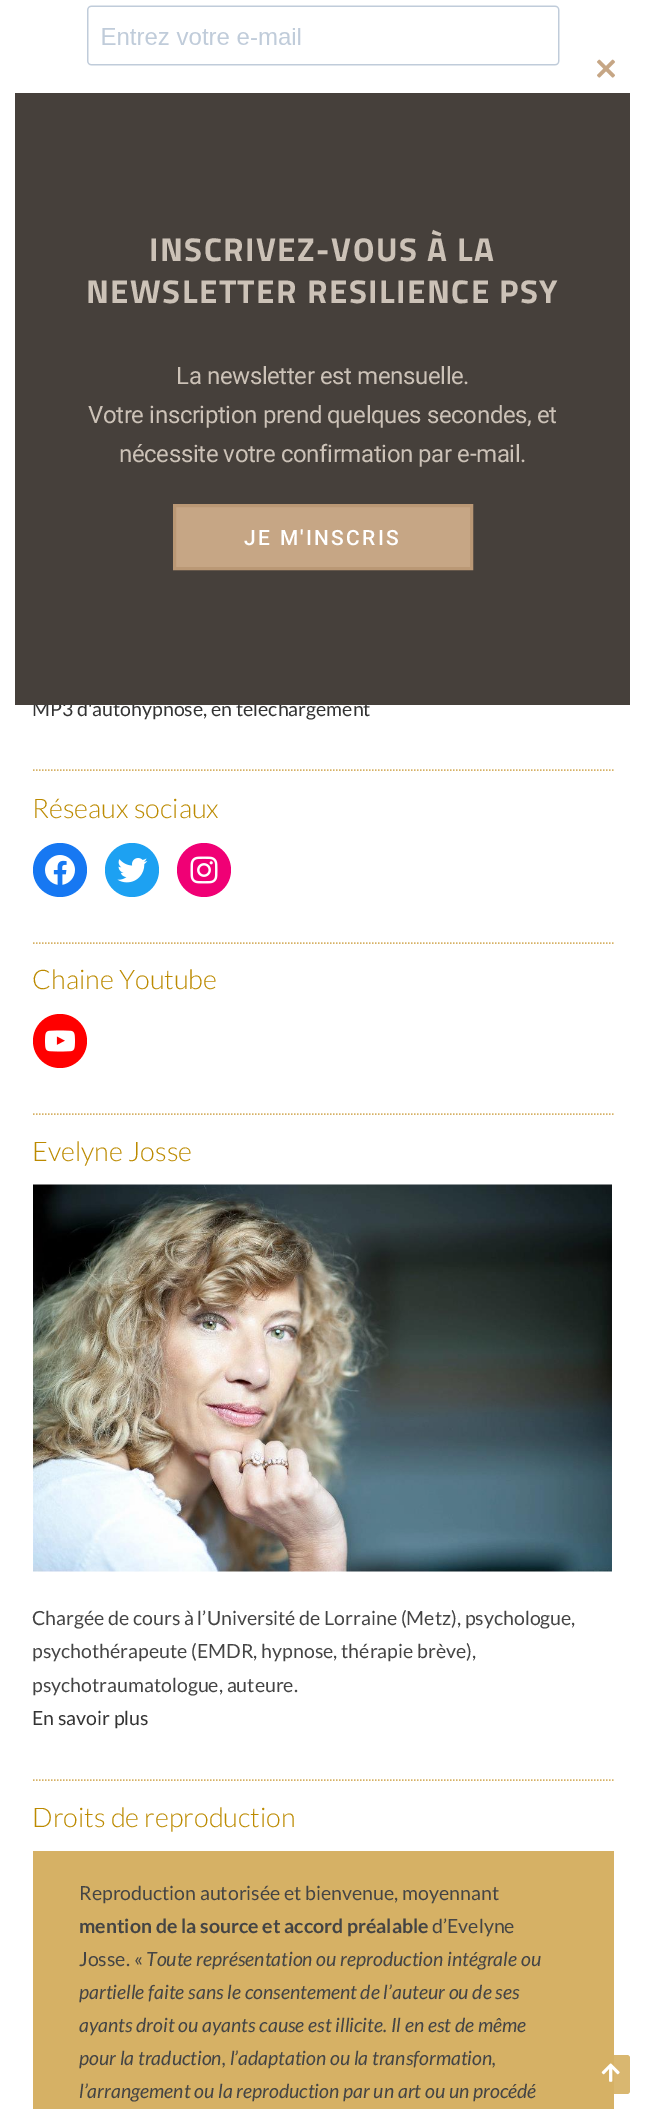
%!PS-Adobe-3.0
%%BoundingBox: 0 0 645 2109
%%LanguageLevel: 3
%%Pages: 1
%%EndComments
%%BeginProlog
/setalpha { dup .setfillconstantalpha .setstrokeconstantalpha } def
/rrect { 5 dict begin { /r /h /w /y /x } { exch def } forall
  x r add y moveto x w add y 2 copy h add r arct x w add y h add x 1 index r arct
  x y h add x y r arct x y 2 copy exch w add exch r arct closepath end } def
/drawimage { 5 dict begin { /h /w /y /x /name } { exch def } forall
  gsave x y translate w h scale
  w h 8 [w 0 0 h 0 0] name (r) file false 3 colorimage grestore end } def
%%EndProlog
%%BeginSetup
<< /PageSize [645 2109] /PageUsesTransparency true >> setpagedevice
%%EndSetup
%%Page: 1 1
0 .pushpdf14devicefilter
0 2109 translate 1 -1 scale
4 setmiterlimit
1 setgray
0 0 645 2109 rectfill
(images/1.raw) 597 59 18 19 drawimage
(images/2.raw) 87 5 473 88 drawimage
0.839 0.694 0.396 setrgbcolor
1.5 setlinewidth
[1.5 1.5] 0 setdash
newpath 33 770 moveto 613.5 770 lineto stroke
0.09 0.471 0.949 setrgbcolor
newpath 60 870 27 0 360 arc closepath fill
(images/3.raw) 45 855 30 30 drawimage
0.114 0.631 0.949 setrgbcolor
newpath 132 870 27 0 360 arc closepath fill
(images/4.raw) 117 858 31 25 drawimage
0.941 0 0.459 setrgbcolor
newpath 204 870 27 0 360 arc closepath fill
(images/5.raw) 190 856 28 28 drawimage
0.839 0.694 0.396 setrgbcolor
newpath 33 943 moveto 613.5 943 lineto stroke
1 0 0 setrgbcolor
newpath 60 1041 27 0 360 arc closepath fill
(images/6.raw) 45 1030 30 22 drawimage
0.839 0.694 0.396 setrgbcolor
newpath 33 1114 moveto 613.5 1114 lineto stroke
(images/7.raw) 33 1184 579 388 drawimage
newpath 33 1780 moveto 613.5 1780 lineto stroke
33 1851 581 258 rectfill
0.93 setalpha
591 2055 39 39 3 rrect fill
1 setalpha
(images/8.raw) 601 2063 19 19 drawimage
/Lato-Regular [19.5 0 0 -19.5 0 0] selectfont
0.2 setgray
32 716 moveto (MP3 d'autohypnose, en téléchargement) show
0.275 0.251 0.231 setrgbcolor
15 93 615 612 rectfill
0.776 0.651 0.522 setrgbcolor
newpath 174.5 505.5 moveto 471.5 505.5 lineto 471.5 568.5 lineto 174.5 568.5 lineto closepath gsave fill grestore
0.729 0.596 0.459 setrgbcolor
3 setlinewidth
[] 0 setdash
stroke
/Roboto-Medium [21 0 0 -21 0 0] selectfont
1 setgray
244 545 moveto 2.25 0 (JE M'INSCRIS) ashow
/Roboto-Regular [24 0 0 -24 0 0] selectfont
0.8 0.761 0.718 setrgbcolor
119 462 moveto -0.4 0 (nécessite votre confirmation par e-mail.) ashow
88 423 moveto -0.4 0 (Votre inscription prend quelques secondes, et) ashow
176 384 moveto -0.4 0 (La newsletter est mensuelle.) ashow
/TitilliumWeb-Bold [33 0 0 -33 0 0] selectfont
86 303 moveto 1.5 0 (NEWSLETTER RESILIENCE PSY) ashow
149 261 moveto 1.5 0 (INSCRIVEZ-VOUS À LA) ashow
/Lato-Light [27 0 0 -27 0 0] selectfont
0.737 0.541 0 setrgbcolor
32 818 moveto (Réseaux sociaux) show
32 989 moveto (Chaine Youtube) show
32 1161 moveto (Evelyne Josse) show
/Lato-Regular [19.5 0 0 -19.5 0 0] selectfont
0.267 setgray
32 1625 moveto (Chargée de cours à l’Université de Lorraine \(Metz\), psychologue,) show
32 1658 moveto (psychothérapeute \(EMDR, hypnose, thérapie brève\),) show
32 1692 moveto (psychotraumatologue, auteure.) show
0.2 setgray
32 1725 moveto (En savoir plus) show
/Lato-Light [27 0 0 -27 0 0] selectfont
0.737 0.541 0 setrgbcolor
32 1827 moveto (Droits de reproduction) show
/Lato-Regular [19.5 0 0 -19.5 0 0] selectfont
0.267 setgray
79 1900 moveto (Reproduction autorisée et bienvenue, moyennant) show
/Lato-Bold [19.5 0 0 -19.5 0 0] selectfont
79 1933 moveto (mention de la source et accord préalable) show
/Lato-Regular [19.5 0 0 -19.5 0 0] selectfont
432 1933 moveto (d’Evelyne) show
79 1966 moveto (Josse. «) show
/Lato-Italic [19.5 0 0 -19.5 0 0] selectfont
146 1966 moveto (Toute représentation ou reproduction intégrale ou) show
79 1999 moveto (partielle faite sans le consentement de l’auteur ou de ses) show
79 2032 moveto (ayants droit ou ayants cause est illicite. Il en est de même) show
79 2065 moveto (pour la traduction, l’adaptation ou la transformation,) show
79 2098 moveto (l’arrangement ou la reproduction par un art ou un procédé) show
.poppdf14devicefilter showpage
%%EOF
